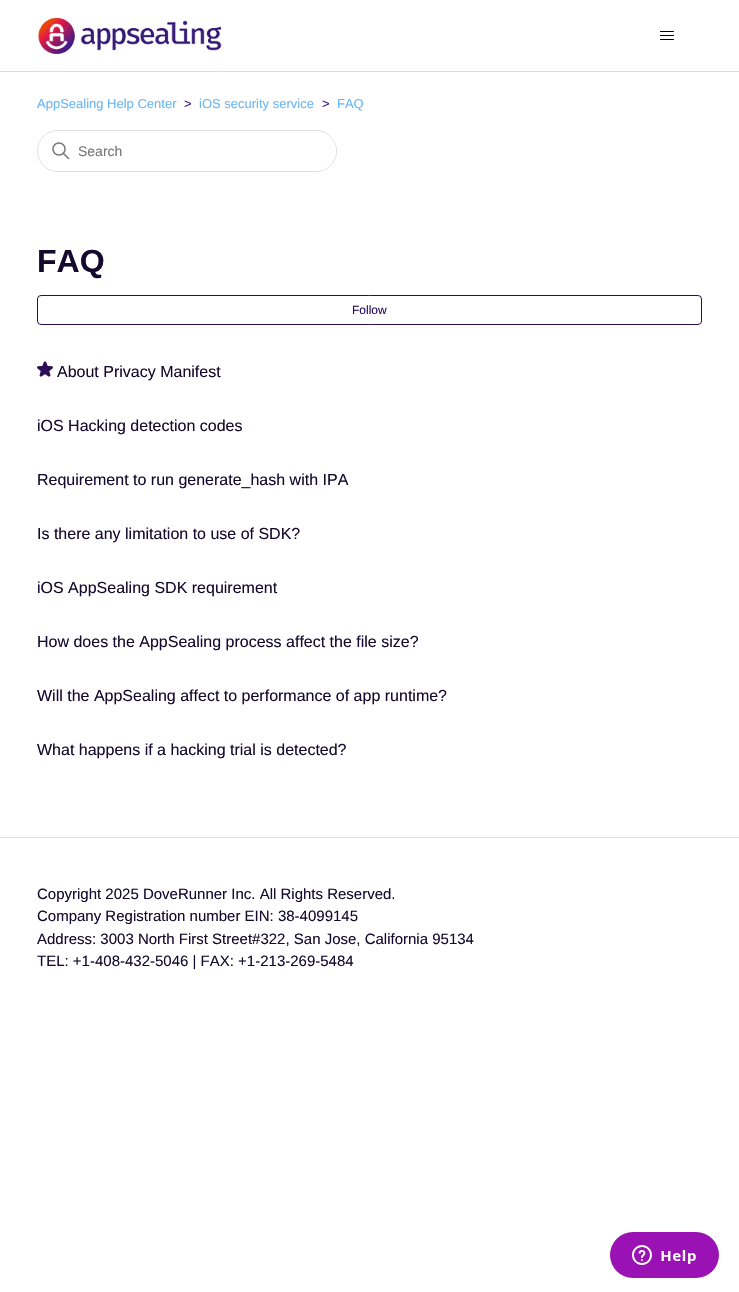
void draw(SkCanvas* canvas) {
	SkPaint paint;
	paint.setAntiAlias(true);
	auto svgPath = [&](const char* data, bool evenOdd = false) {
		SkPath result = *SkParsePath::FromSVGString(data);
		if (evenOdd) result.setFillType(SkPathFillType::kEvenOdd);
		return result;
	};
	canvas->clear(0xffffffff);
	canvas->drawImageRect(SkImages::DeferredFromEncodedData(SkData::MakeFromFileName("img1.png")), SkRect::MakeXYWH(38, 17, 184, 37), SkSamplingOptions());
	paint.setStroke(true);
	paint.setStrokeWidth(1);
	paint.setStrokeCap(SkPaint::kRound_Cap);
	paint.setColor(0xff000000);
	canvas->drawPath(svgPath("M660.5 31.5H673.5M660.5 35.5H673.5M660.5 39.5H673.5"), paint);
	paint.setStroke(false);
	paint.setColor(0xffdddddd);
	canvas->drawRect(SkRect::MakeXYWH(0, 71, 739, 1), paint);
	SkFont f1(fontMgr->matchFamilyStyle("Liberation Sans", SkFontStyle::Normal()), 13);
	f1.setSubpixel(true);
	paint.setColor(0xff68b7f9);
	canvas->drawString("AppSealing Help Center", 37, 108, f1, paint);
	paint.setColor(0xff391d80);
	canvas->drawString(">", 184, 108, f1, paint);
	paint.setColor(0xff68b7f9);
	canvas->drawString("iOS security service", 199, 108, f1, paint);
	paint.setColor(0xff391d80);
	canvas->drawString(">", 322, 108, f1, paint);
	paint.setColor(0xff68b7f9);
	canvas->drawString("FAQ", 337, 108, f1, paint);
	paint.setStroke(true);
	paint.setStrokeCap(SkPaint::kButt_Cap);
	paint.setColor(0xffdddddd);
	canvas->drawRoundRect(SkRect::MakeXYWH(37.5, 130.5, 299, 41), 20.5, 20.5, paint);
	paint.setStroke(false);
	paint.setColor(0xffffffff);
	canvas->drawRoundRect(SkRect::MakeXYWH(38, 131, 298, 40), 20, 20, paint);
	canvas->drawImageRect(SkImages::DeferredFromEncodedData(SkData::MakeFromFileName("img2.png")), SkRect::MakeXYWH(52, 142, 18, 18), SkSamplingOptions());
	SkFont f2(fontMgr->matchFamilyStyle("Liberation Sans", SkFontStyle::Normal()), 14);
	f2.setSubpixel(true);
	paint.setColor(0xff757575);
	canvas->drawString("Search", 78, 156, f2, paint);
	SkFont f3(fontMgr->matchFamilyStyle("Liberation Sans", SkFontStyle::Bold()), 32);
	f3.setSubpixel(true);
	paint.setColor(0xff140a2d);
	canvas->drawString("FAQ", 37, 272, f3, paint);
	paint.setStroke(true);
	paint.setColor(0xff2b0e56);
	canvas->drawRoundRect(SkRect::MakeXYWH(37.5, 295.5, 664, 29), 3.5, 3.5, paint);
	SkFont f4(fontMgr->matchFamilyStyle("Liberation Sans", SkFontStyle::Normal()), 12);
	f4.setSubpixel(true);
	paint.setStroke(false);
	canvas->drawString("Follow", 352, 314, f4, paint);
	canvas->drawImageRect(SkImages::DeferredFromEncodedData(SkData::MakeFromFileName("img3.png")), SkRect::MakeXYWH(37, 361, 16, 16), SkSamplingOptions());
	SkFont f5(fontMgr->matchFamilyStyle("Liberation Sans", SkFontStyle::Normal()), 16);
	f5.setSubpixel(true);
	paint.setColor(0xff140a2d);
	canvas->drawString("About Privacy Manifest", 57, 377, f5, paint);
	canvas->drawString("iOS Hacking detection codes", 37, 431, f5, paint);
	canvas->drawString("Requirement to run generate_hash with IPA", 37, 485, f5, paint);
	canvas->drawString("Is there any limitation to use of SDK?", 37, 539, f5, paint);
	canvas->drawString("iOS AppSealing SDK requirement", 37, 593, f5, paint);
	canvas->drawString("How does the AppSealing process affect the file size?", 37, 647, f5, paint);
	canvas->drawString("Will the AppSealing affect to performance of app runtime?", 37, 701, f5, paint);
	canvas->drawString("What happens if a hacking trial is detected?", 37, 755, f5, paint);
	paint.setColor(0xffdddddd);
	canvas->drawRect(SkRect::MakeXYWH(0, 837, 739, 1), paint);
	SkFont f6(fontMgr->matchFamilyStyle("Liberation Sans", SkFontStyle::Normal()), 15);
	f6.setSubpixel(true);
	paint.setColor(0xff140a2d);
	canvas->drawString("Copyright 2025 DoveRunner Inc. All Rights Reserved.", 37, 899, f6, paint);
	canvas->drawString("Company Registration number EIN: 38-4099145", 37, 921, f6, paint);
	canvas->drawString("Address: 3003 North First Street#322, San Jose, California 95134", 37, 944, f6, paint);
	canvas->drawString("TEL: +1-408-432-5046 | FAX: +1-213-269-5484", 37, 966, f6, paint);
	canvas->drawImageRect(SkImages::DeferredFromEncodedData(SkData::MakeFromFileName("img4.png")), SkRect::MakeXYWH(610, 1232, 109, 46), SkSamplingOptions());
}
